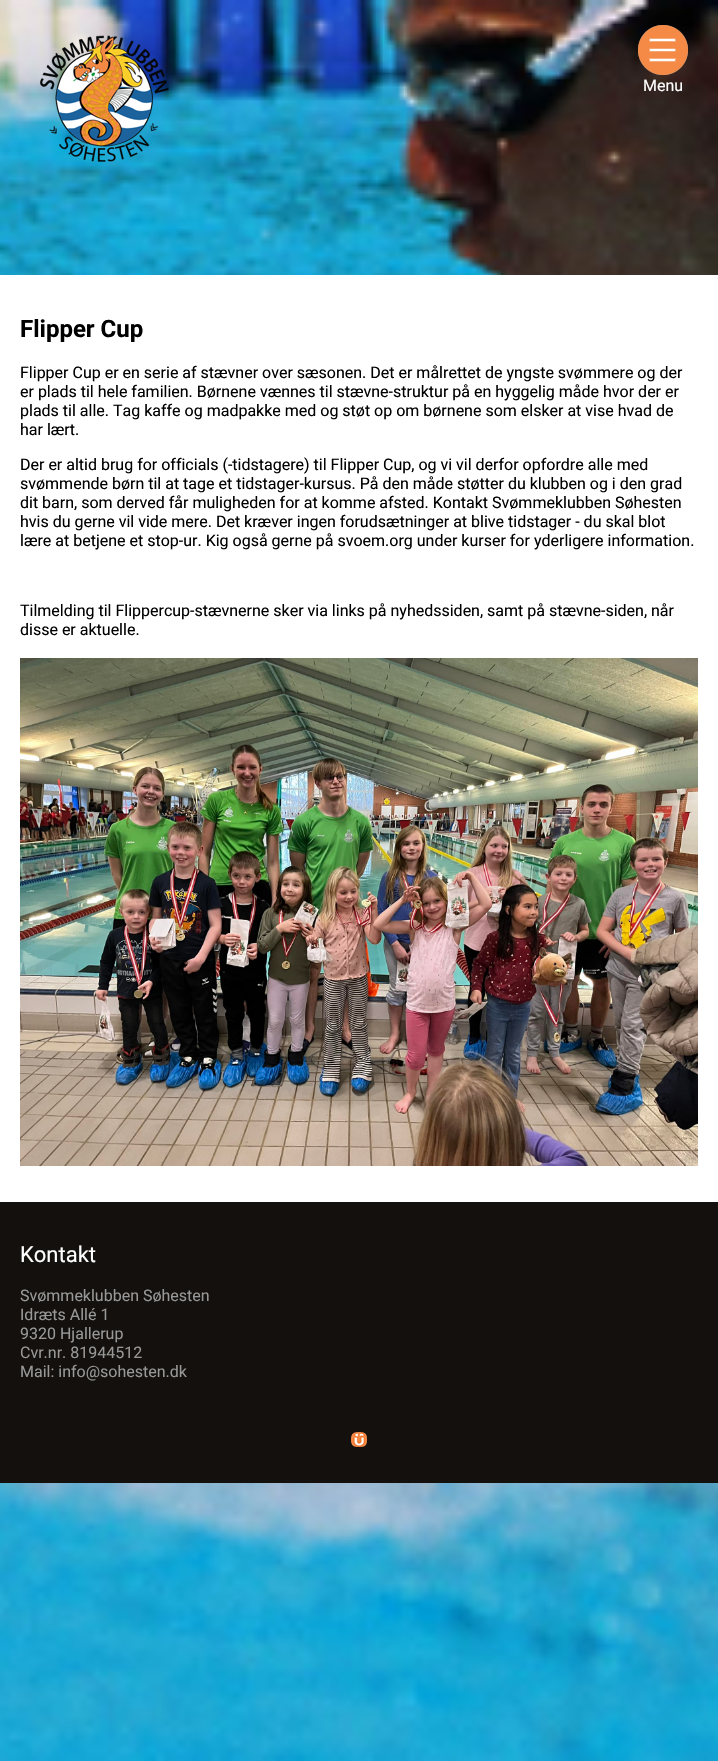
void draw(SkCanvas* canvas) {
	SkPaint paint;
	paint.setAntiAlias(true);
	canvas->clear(0xffffffff);
	canvas->drawImageRect(SkImages::DeferredFromEncodedData(SkData::MakeFromFileName("img1.png")), SkRect::MakeXYWH(0, 0, 718, 1761), SkSamplingOptions());
	canvas->drawImageRect(SkImages::DeferredFromEncodedData(SkData::MakeFromFileName("img2.png")), SkRect::MakeXYWH(40, 35, 129, 127), SkSamplingOptions());
	canvas->drawImageRect(SkImages::DeferredFromEncodedData(SkData::MakeFromFileName("img3.png")), SkRect::MakeXYWH(638, 25, 50, 50), SkSamplingOptions());
	SkFont f1(fontMgr->matchFamilyStyle("Roboto", SkFontStyle::Normal()), 16);
	f1.setSubpixel(true);
	paint.setColor(0xffffffff);
	canvas->drawString("Menu", 643, 91, f1, paint);
	canvas->drawRect(SkRect::MakeXYWH(0, 275, 718, 927), paint);
	SkFont f2(fontMgr->matchFamilyStyle("Roboto", SkFontStyle::Bold()), 24);
	f2.setSubpixel(true);
	paint.setColor(0xff000000);
	canvas->drawString("Flipper Cup", 20, 337, f2, paint);
	canvas->drawString("Flipper Cup er en serie af stævner over sæsonen. Det er målrettet de yngste svømmere og der", 20, 378, f1, paint);
	canvas->drawString("er plads til hele familien. Børnene vænnes til stævne-struktur på en hyggelig måde hvor der er", 20, 397, f1, paint);
	canvas->drawString("plads til alle. Tag kaffe og madpakke med og støt op om børnene som elsker at vise hvad de", 20, 416, f1, paint);
	canvas->drawString("har lært.", 20, 435, f1, paint);
	canvas->drawString("Der er altid brug for officials (-tidstagere) til Flipper Cup, og vi vil derfor opfordre alle med", 20, 470, f1, paint);
	canvas->drawString("svømmende børn til at tage et tidstager-kursus. På den måde støtter du klubben og i den grad", 20, 489, f1, paint);
	canvas->drawString("dit barn, som derved får muligheden for at komme afsted. Kontakt Svømmeklubben Søhesten", 20, 508, f1, paint);
	canvas->drawString("hvis du gerne vil vide mere. Det kræver ingen forudsætninger at blive tidstager - du skal blot", 20, 527, f1, paint);
	canvas->drawString("lære at betjene et stop-ur. Kig også gerne på svoem.org under kurser for yderligere information.", 20, 546, f1, paint);
	canvas->drawString("Tilmelding til Flippercup-stævnerne sker via links på nyhedssiden, samt på stævne-siden, når", 20, 616, f1, paint);
	canvas->drawString("disse er aktuelle.", 20, 635, f1, paint);
	canvas->drawImageRect(SkImages::DeferredFromEncodedData(SkData::MakeFromFileName("img4.png")), SkRect::MakeXYWH(20, 658, 678, 508), SkSamplingOptions());
	paint.setColor(0xff13100d);
	canvas->drawRect(SkRect::MakeXYWH(0, 1202, 718, 281), paint);
	SkFont f3(fontMgr->matchFamilyStyle("Roboto", SkFontStyle::Normal()), 22);
	f3.setSubpixel(true);
	paint.setColor(0xffffffff);
	canvas->drawString("Kontakt", 20, 1262, f3, paint);
	paint.setColor(0xff989898);
	canvas->drawString("Svømmeklubben Søhesten", 20, 1301, f1, paint);
	canvas->drawString("Idræts Allé 1", 20, 1320, f1, paint);
	canvas->drawString("9320 Hjallerup", 20, 1339, f1, paint);
	canvas->drawString("Cvr.nr. 81944512", 20, 1358, f1, paint);
	canvas->drawString("Mail: info@sohesten.dk", 20, 1377, f1, paint);
	canvas->drawImageRect(SkImages::DeferredFromEncodedData(SkData::MakeFromFileName("img5.png")), SkRect::MakeXYWH(351, 1432, 16, 15), SkSamplingOptions());
}
